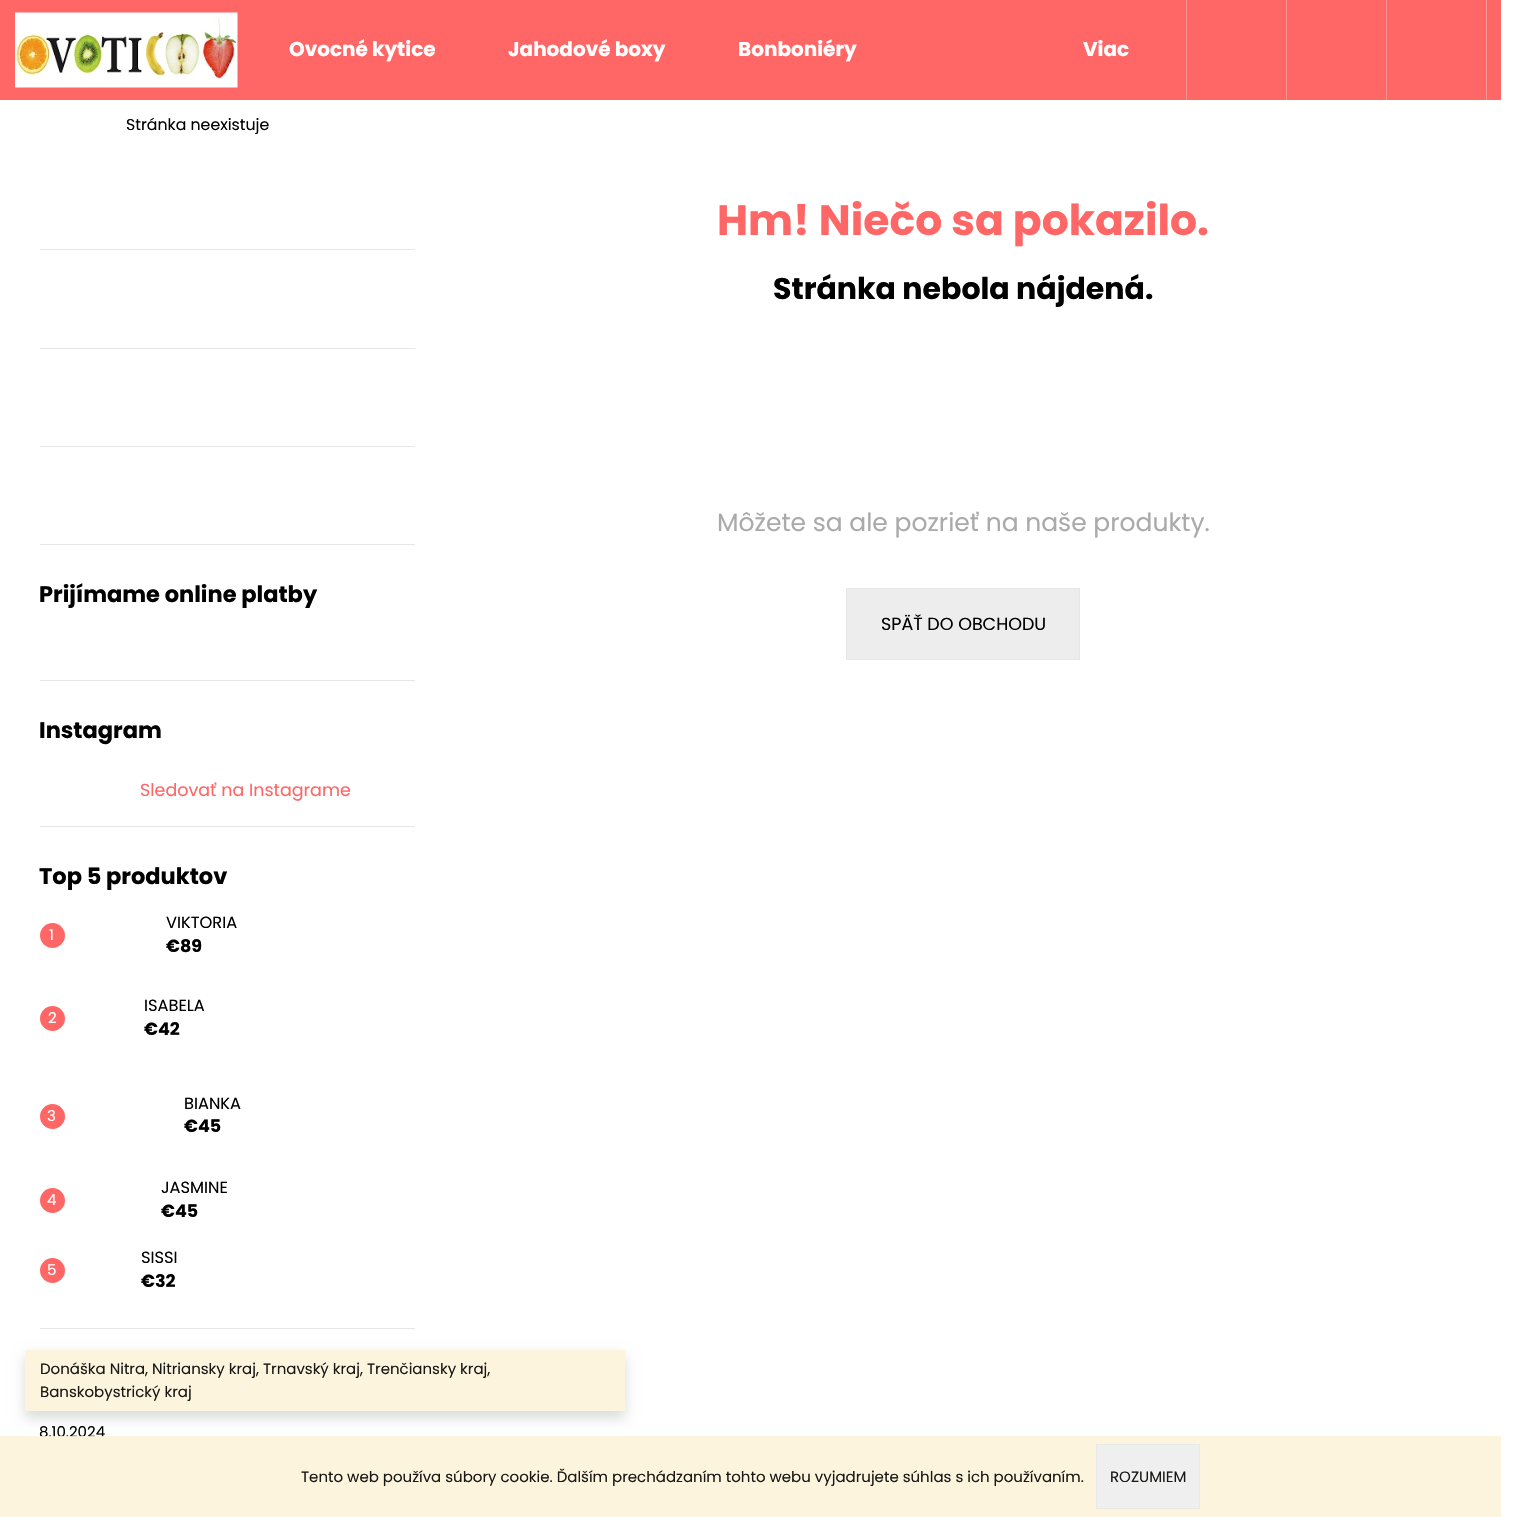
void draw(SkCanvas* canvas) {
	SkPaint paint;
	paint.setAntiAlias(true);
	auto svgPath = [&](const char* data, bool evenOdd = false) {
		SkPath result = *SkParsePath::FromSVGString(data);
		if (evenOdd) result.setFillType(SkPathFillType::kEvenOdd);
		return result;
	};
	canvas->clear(0xffffffff);
	paint.setColor(0xffff6666);
	canvas->drawRect(SkRect::MakeXYWH(0, 0, 1501, 100), paint);
	canvas->drawImageRect(SkImages::DeferredFromEncodedData(SkData::MakeFromFileName("img1.png")), SkRect::MakeXYWH(15, 12, 223, 76), SkSamplingOptions());
	SkFont f1(fontMgr->matchFamilyStyle("Poppins", SkFontStyle::Bold()), 20);
	f1.setSubpixel(true);
	paint.setColor(0xffffffff);
	canvas->drawString("Ovocné kytice", 289, 56, f1, paint);
	canvas->drawString("Jahodové boxy", 508, 56, f1, paint);
	canvas->drawString("Bonboniéry", 738, 56, f1, paint);
	canvas->drawString("Viac", 1083, 56, f1, paint);
	paint.setColor(0xffff9494);
	canvas->drawRect(SkRect::MakeXYWH(1486, 0, 1, 100), paint);
	canvas->drawRect(SkRect::MakeXYWH(1186, 0, 1, 100), paint);
	canvas->drawRect(SkRect::MakeXYWH(1286, 0, 1, 100), paint);
	canvas->drawRect(SkRect::MakeXYWH(1386, 0, 1, 100), paint);
	SkFont f2(fontMgr->matchFamilyStyle("Poppins", SkFontStyle::Normal()), 15.75);
	f2.setSubpixel(true);
	paint.setColor(0xff000000);
	canvas->drawString("Stránka neexistuje", 126, 130, f2, paint);
	SkFont f3(fontMgr->matchFamilyStyle("Poppins", SkFontStyle::Bold()), 42.5);
	f3.setSubpixel(true);
	paint.setColor(0xffff6666);
	canvas->drawString("Hm! Niečo sa pokazilo.", 717, 235, f3, paint);
	SkFont f4(fontMgr->matchFamilyStyle("Poppins", SkFontStyle::Bold()), 30);
	f4.setSubpixel(true);
	paint.setColor(0xff000000);
	canvas->drawString("Stránka nebola nájdená.", 773, 299, f4, paint);
	SkFont f5(fontMgr->matchFamilyStyle("Poppins", SkFontStyle::Normal()), 25);
	f5.setSubpixel(true);
	paint.setColor(0xffaaaaaa);
	canvas->drawString("Môžete sa ale pozrieť na naše produkty.", 717, 531, f5, paint);
	paint.setColor(0xffededed);
	canvas->drawRect(SkRect::MakeXYWH(846.5, 588.5, 233, 71), paint);
	paint.setStroke(true);
	paint.setStrokeWidth(1);
	paint.setColor(0xffe6e6e6);
	canvas->drawRect(SkRect::MakeXYWH(846.5, 588.5, 233, 71), paint);
	SkFont f6(fontMgr->matchFamilyStyle("Poppins", SkFontStyle::Normal()), 17.5);
	f6.setSubpixel(true);
	paint.setStroke(false);
	paint.setColor(0xff000000);
	canvas->drawString("SPÄŤ DO OBCHODU", 881, 630, f6, paint);
	paint.setColor(0xffe6e6e6);
	canvas->drawRect(SkRect::MakeXYWH(40, 249, 375, 1), paint);
	canvas->drawRect(SkRect::MakeXYWH(40, 348, 375, 1), paint);
	canvas->drawRect(SkRect::MakeXYWH(40, 446, 375, 1), paint);
	canvas->drawRect(SkRect::MakeXYWH(40, 544, 375, 1), paint);
	SkFont f7(fontMgr->matchFamilyStyle("Poppins", SkFontStyle::Bold()), 22.5);
	f7.setSubpixel(true);
	paint.setColor(0xff000000);
	canvas->drawString("Prijímame online platby", 39, 602, f7, paint);
	paint.setColor(0xffe6e6e6);
	canvas->drawRect(SkRect::MakeXYWH(40, 680, 375, 1), paint);
	paint.setColor(0xff000000);
	canvas->drawString("Instagram", 39, 738, f7, paint);
	paint.setColor(0xffff6666);
	canvas->drawString("Sledovať na Instagrame", 140, 796, f6, paint);
	paint.setColor(0xffe6e6e6);
	canvas->drawRect(SkRect::MakeXYWH(40, 826, 375, 1), paint);
	paint.setColor(0xff000000);
	canvas->drawString("Top 5 produktov", 39, 884, f7, paint);
	paint.setColor(0xffff6666);
	canvas->drawCircle(52.5, 935.5, 12.5, paint);
	SkFont f8(fontMgr->matchFamilyStyle("Poppins", SkFontStyle::Normal()), 15);
	f8.setSubpixel(true);
	paint.setColor(0xffffffff);
	canvas->drawString("1", 49, 940, f8, paint);
	SkFont f9(fontMgr->matchFamilyStyle("Poppins", SkFontStyle::Normal()), 16.25);
	f9.setSubpixel(true);
	paint.setColor(0xff000000);
	canvas->drawString("VIKTORIA", 166, 928, f9, paint);
	SkFont f10(fontMgr->matchFamilyStyle("Poppins", SkFontStyle::Bold()), 17.5);
	f10.setSubpixel(true);
	canvas->drawString("€89", 166, 952, f10, paint);
	paint.setColor(0xffff6666);
	canvas->drawCircle(52.5, 1018.5, 12.5, paint);
	paint.setColor(0xffffffff);
	canvas->drawString("2", 48, 1023, f8, paint);
	paint.setColor(0xff000000);
	canvas->drawString("ISABELA", 144, 1011, f9, paint);
	canvas->drawString("€42", 144, 1035, f10, paint);
	paint.setColor(0xffff6666);
	canvas->drawCircle(52.5, 1116.5, 12.5, paint);
	paint.setColor(0xffffffff);
	canvas->drawString("3", 47, 1121, f8, paint);
	paint.setColor(0xff000000);
	canvas->drawString("BIANKA", 184, 1109, f9, paint);
	canvas->drawString("€45", 184, 1132, f10, paint);
	paint.setColor(0xffff6666);
	canvas->drawCircle(52.5, 1200.5, 12.5, paint);
	paint.setColor(0xffffffff);
	canvas->drawString("4", 47, 1205, f8, paint);
	paint.setColor(0xff000000);
	canvas->drawString("JASMINE", 161, 1193, f9, paint);
	canvas->drawString("€45", 161, 1217, f10, paint);
	paint.setColor(0xffff6666);
	canvas->drawCircle(52.5, 1270.5, 12.5, paint);
	paint.setColor(0xffffffff);
	canvas->drawString("5", 47, 1275, f8, paint);
	paint.setColor(0xff000000);
	canvas->drawString("SISSI", 141, 1263, f9, paint);
	canvas->drawString("€32", 141, 1287, f10, paint);
	paint.setColor(0xffe6e6e6);
	canvas->drawRect(SkRect::MakeXYWH(40, 1328, 375, 1), paint);
	paint.setColor(0xff000000);
	canvas->drawString("8.10.2024", 39, 1437, f8, paint);
	canvas->save();
	canvas->clipPath(svgPath("M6 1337H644V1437H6ZM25 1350H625V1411H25Z", true), true);
	paint.setColor(0x24000000);
	paint.setMaskFilter(SkMaskFilter::MakeBlur(kNormal_SkBlurStyle, 6));
	canvas->drawRect(SkRect::MakeXYWH(25, 1356, 600, 62), paint);
	paint.setMaskFilter(nullptr);
	canvas->restore();
	paint.setColor(0xe6fdf3da);
	canvas->drawRect(SkRect::MakeXYWH(25, 1350, 600, 61), paint);
	paint.setColor(0xff191816);
	canvas->drawString("Donáška Nitra, Nitriansky kraj, Trnavský kraj, Trenčiansky kraj,", 40, 1374, f8, paint);
	canvas->drawString("Banskobystrický kraj", 40, 1397, f8, paint);
	paint.setColor(0xe6fdf3da);
	canvas->drawRect(SkRect::MakeXYWH(0, 1436, 1501, 81), paint);
	paint.setColor(0xff191816);
	canvas->drawString("Tento web používa súbory cookie. Ďalším prechádzaním tohto webu vyjadrujete súhlas s ich používaním.", 301, 1482, f8, paint);
	paint.setColor(0xffefefef);
	canvas->drawRect(SkRect::MakeXYWH(1096.5, 1444.5, 103, 64), paint);
	paint.setStroke(true);
	paint.setColor(0xffe9e9e9);
	canvas->drawRect(SkRect::MakeXYWH(1096.5, 1444.5, 103, 64), paint);
	paint.setStroke(false);
	paint.setColor(0xff191816);
	canvas->drawString("ROZUMIEM", 1110, 1482, f8, paint);
}
